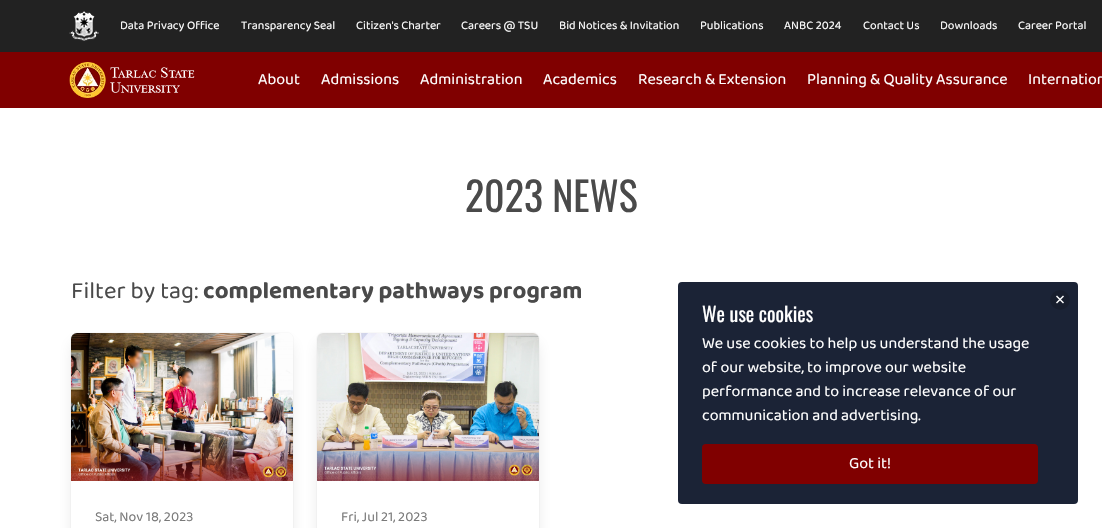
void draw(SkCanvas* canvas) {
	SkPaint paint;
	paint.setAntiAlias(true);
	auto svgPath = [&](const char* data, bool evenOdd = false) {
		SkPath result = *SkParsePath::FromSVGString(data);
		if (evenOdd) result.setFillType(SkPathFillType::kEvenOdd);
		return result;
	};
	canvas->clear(0xffffffff);
	paint.setColor(0xff222222);
	canvas->drawRect(SkRect::MakeXYWH(0, 0, 1102, 52), paint);
	canvas->drawImageRect(SkImages::DeferredFromEncodedData(SkData::MakeFromFileName("img1.png")), SkRect::MakeXYWH(69, 11, 30, 30), SkSamplingOptions());
	SkFont f1(fontMgr->matchFamilyStyle("Baloo Thambi 2", SkFontStyle::Normal()), 12);
	f1.setSubpixel(true);
	paint.setColor(0xffffffff);
	canvas->drawString("Data Privacy Office", 120, 29, f1, paint);
	canvas->drawString("Transparency Seal", 241, 29, f1, paint);
	canvas->drawString("Citizen's Charter", 356, 29, f1, paint);
	canvas->drawString("Careers @ TSU", 461, 29, f1, paint);
	canvas->drawString("Bid Notices & Invitation", 559, 29, f1, paint);
	canvas->drawString("Publications", 700, 29, f1, paint);
	canvas->drawString("ANBC 2024", 784, 29, f1, paint);
	canvas->drawString("Contact Us", 863, 29, f1, paint);
	canvas->drawString("Downloads", 940, 29, f1, paint);
	canvas->drawString("Career Portal", 1018, 29, f1, paint);
	paint.setColor(0xff800000);
	canvas->drawRect(SkRect::MakeXYWH(0, 52, 1102, 56), paint);
	canvas->drawImageRect(SkImages::DeferredFromEncodedData(SkData::MakeFromFileName("img2.png")), SkRect::MakeXYWH(69, 62, 126, 36), SkSamplingOptions());
	SkFont f2(fontMgr->matchFamilyStyle("Baloo Thambi 2", SkFontStyle::Normal()), 16);
	f2.setSubpixel(true);
	paint.setColor(0xffffffff);
	canvas->drawString("About", 258, 84, f2, paint);
	canvas->drawString("Admissions", 321, 84, f2, paint);
	canvas->drawString("Administration", 420, 84, f2, paint);
	canvas->drawString("Academics", 543, 84, f2, paint);
	canvas->drawString("Research & Extension", 638, 84, f2, paint);
	canvas->drawString("Planning & Quality Assurance", 807, 84, f2, paint);
	canvas->drawString("Internation", 1028, 84, f2, paint);
	SkFont f3(fontMgr->matchFamilyStyle("Oswald", SkFontStyle::Normal()), 40);
	f3.setSubpixel(true);
	paint.setColor(0xff4a4a4a);
	canvas->drawString("2023 NEWS", 465, 212, f3, paint);
	SkFont f4(fontMgr->matchFamilyStyle("Baloo Thambi 2", SkFontStyle::Normal()), 24);
	f4.setSubpixel(true);
	canvas->drawString("Filter by tag:", 71, 298, f4, paint);
	SkFont f5(fontMgr->matchFamilyStyle("Baloo Thambi 2", SkFontStyle::Bold()), 24);
	f5.setSubpixel(true);
	canvas->drawString("complementary pathways program", 203, 298, f5, paint);
	paint.setStroke(true);
	paint.setStrokeWidth(1);
	paint.setColor(0xfffafafa);
	canvas->drawRoundRect(SkRect::MakeXYWH(70.5, 332.5, 223, 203), 6.5, 6.5, paint);
	paint.setStroke(false);
	paint.setColor(0x1a0a0a0a);
	paint.setMaskFilter(SkMaskFilter::MakeBlur(kNormal_SkBlurStyle, 8));
	canvas->drawRoundRect(SkRect::MakeXYWH(73, 343, 218, 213), 4, 4, paint);
	paint.setMaskFilter(nullptr);
	paint.setColor(0xffffffff);
	canvas->drawRoundRect(SkRect::MakeXYWH(71, 333, 222, 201), 6, 6, paint);
	canvas->drawImageRect(SkImages::DeferredFromEncodedData(SkData::MakeFromFileName("img3.png")), SkRect::MakeXYWH(71, 333, 222, 148), SkSamplingOptions());
	SkFont f6(fontMgr->matchFamilyStyle("Baloo Thambi 2", SkFontStyle::Normal()), 14);
	f6.setSubpixel(true);
	paint.setColor(0xff7a7a7a);
	canvas->drawString("Sat, Nov 18, 2023", 95, 521, f6, paint);
	paint.setStroke(true);
	paint.setColor(0xfffafafa);
	canvas->drawRoundRect(SkRect::MakeXYWH(316.5, 332.5, 223, 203), 6.5, 6.5, paint);
	paint.setStroke(false);
	paint.setColor(0x1a0a0a0a);
	paint.setMaskFilter(SkMaskFilter::MakeBlur(kNormal_SkBlurStyle, 8));
	canvas->drawRoundRect(SkRect::MakeXYWH(319, 343, 218, 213), 4, 4, paint);
	paint.setMaskFilter(nullptr);
	paint.setColor(0xffffffff);
	canvas->drawRoundRect(SkRect::MakeXYWH(317, 333, 222, 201), 6, 6, paint);
	canvas->drawImageRect(SkImages::DeferredFromEncodedData(SkData::MakeFromFileName("img4.png")), SkRect::MakeXYWH(317, 333, 222, 148), SkSamplingOptions());
	paint.setColor(0xff7a7a7a);
	canvas->drawString("Fri, Jul 21, 2023", 341, 521, f6, paint);
	paint.setColor(0xff1b2336);
	canvas->drawRoundRect(SkRect::MakeXYWH(678, 282, 400, 222), 4, 4, paint);
	paint.setColor(0xff181e2d);
	canvas->drawCircle(1060, 300, 10, paint);
	paint.setColor(0xffffffff);
	canvas->drawPath(svgPath("M1057 295.5L1064 302.5L1063 303.5L1056 296.5Z"), paint);
	canvas->drawPath(svgPath("M1063 295.5L1064 296.5L1057 303.5L1056 302.5Z"), paint);
	SkFont f7(fontMgr->matchFamilyStyle("Oswald", SkFontStyle::Normal()), 20);
	f7.setSubpixel(true);
	canvas->drawString("We use cookies", 702, 322, f7, paint);
	canvas->drawString("We use cookies to help us understand the usage", 702, 348, f2, paint);
	canvas->drawString("of our website, to improve our website", 702, 372, f2, paint);
	canvas->drawString("performance and to increase relevance of our", 702, 396, f2, paint);
	canvas->drawString("communication and advertising.", 702, 420, f2, paint);
	paint.setColor(0xff800000);
	canvas->drawRoundRect(SkRect::MakeXYWH(702, 444, 336, 40), 4, 4, paint);
	paint.setColor(0xffffffff);
	canvas->drawString("Got it!", 849, 468, f2, paint);
}
